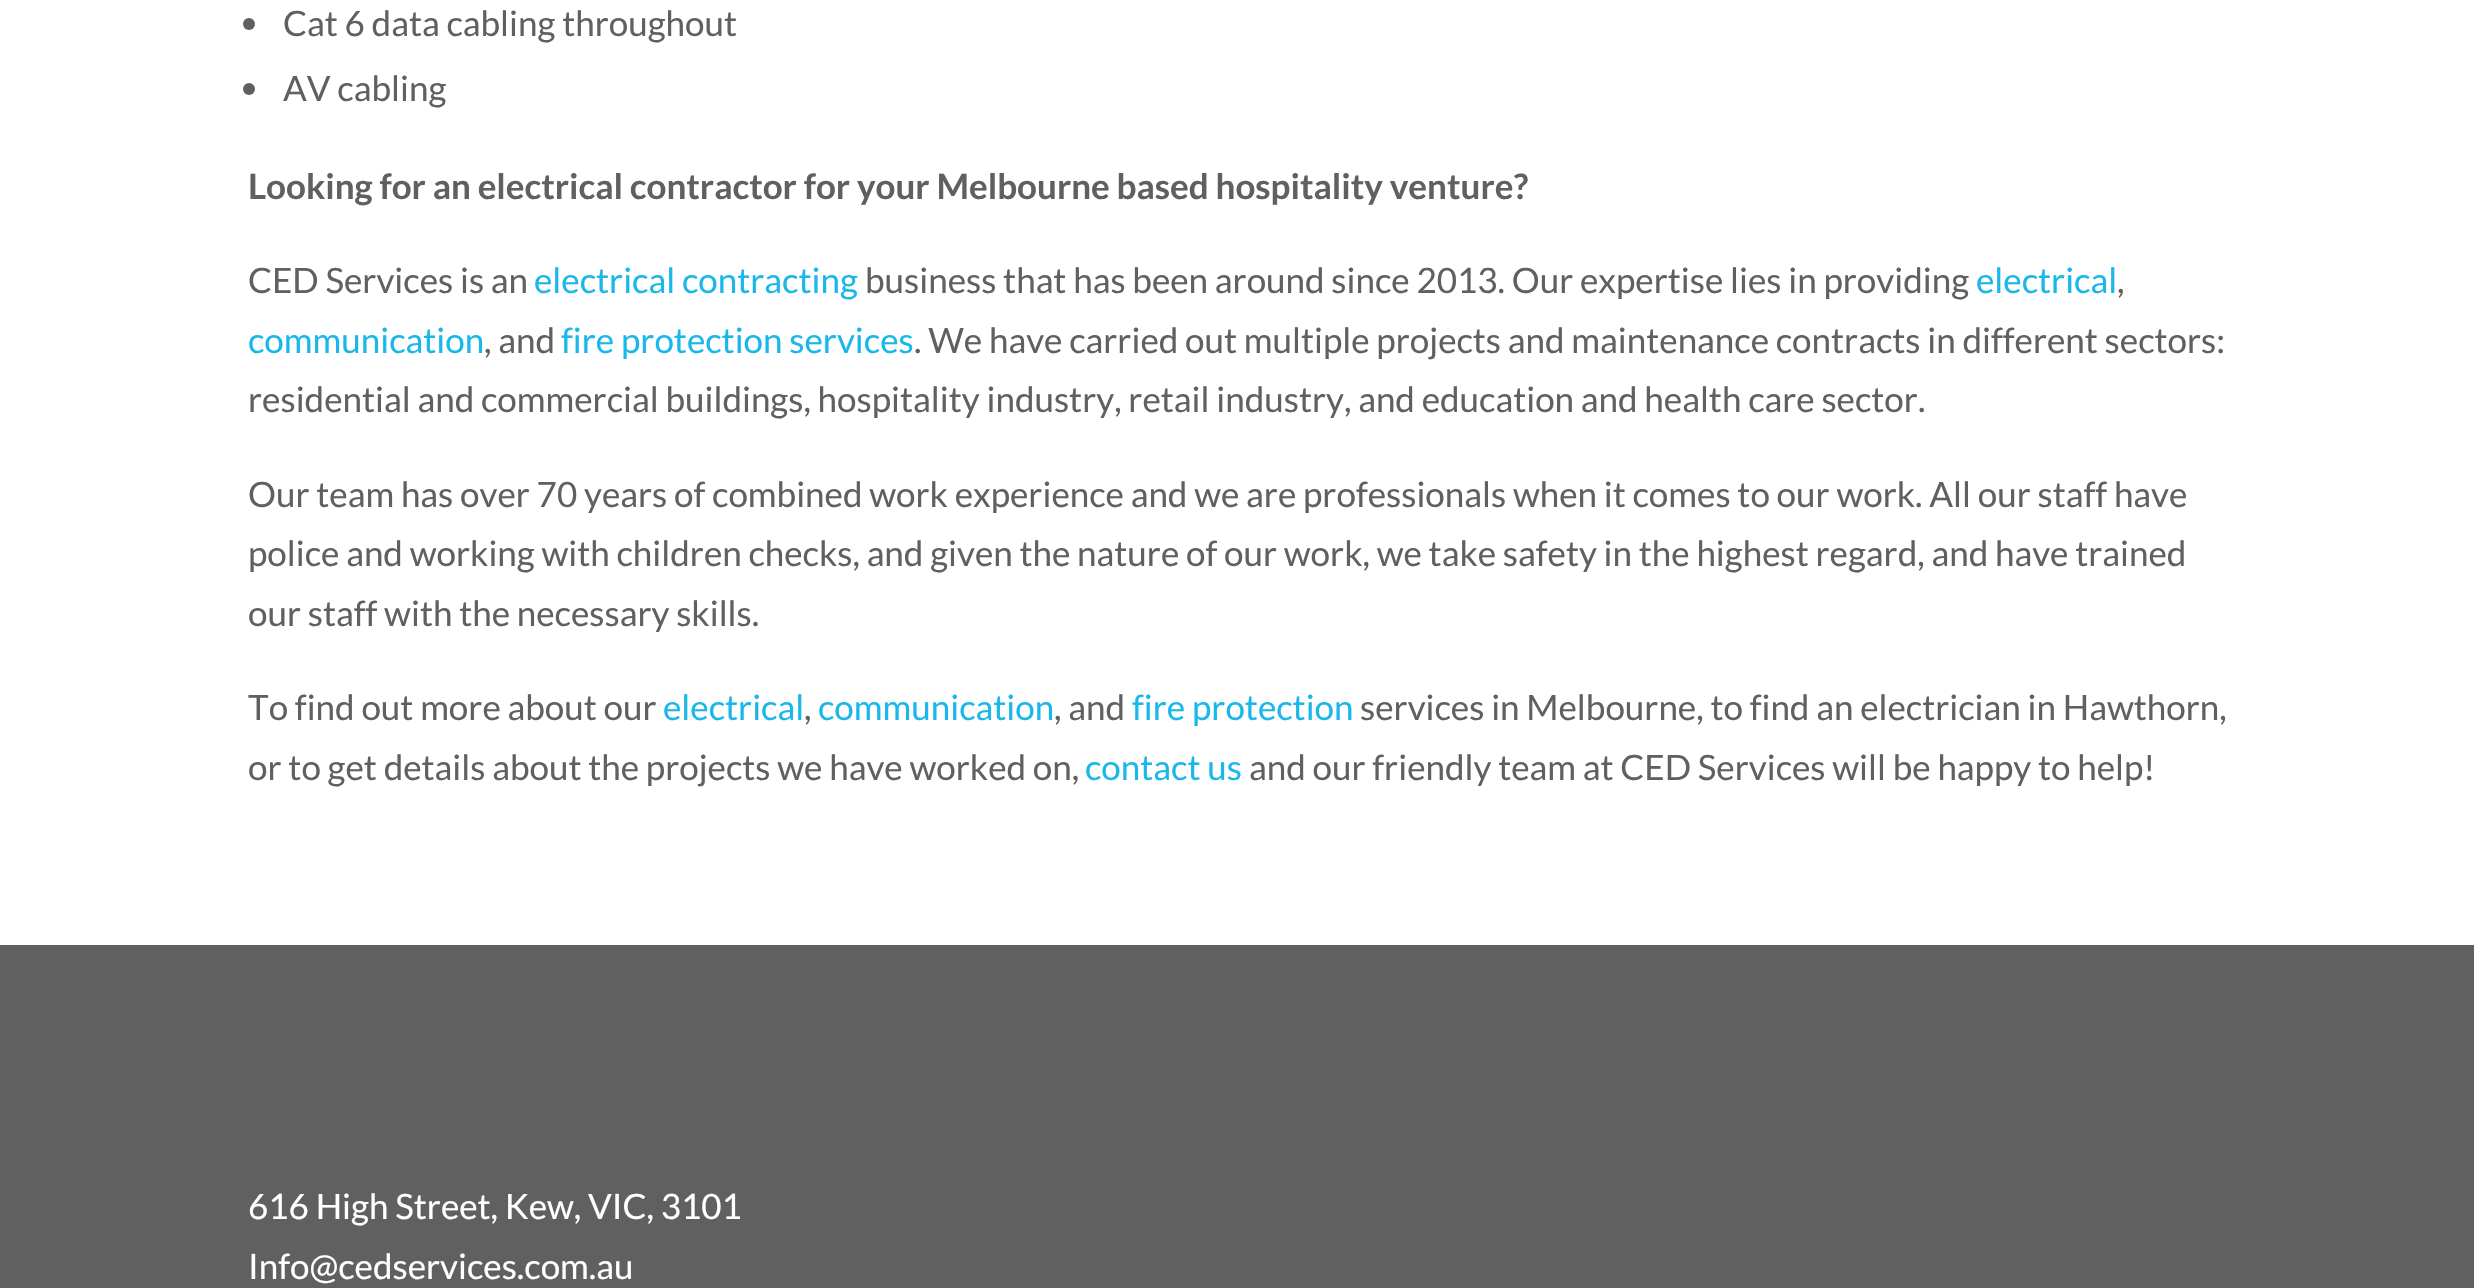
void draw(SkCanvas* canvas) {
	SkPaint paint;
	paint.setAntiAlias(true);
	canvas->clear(0xffffffff);
	paint.setColor(0xff606060);
	canvas->drawCircle(249, 24, 6, paint);
	SkFont f1(fontMgr->matchFamilyStyle("Lato", SkFontStyle::Normal()), 35);
	f1.setSubpixel(true);
	canvas->drawString("Cat 6 data cabling throughout", 283, 36, f1, paint);
	canvas->drawCircle(249, 89, 6, paint);
	canvas->drawString("AV cabling", 283, 101, f1, paint);
	SkFont f2(fontMgr->matchFamilyStyle("Lato", SkFontStyle::Bold()), 35);
	f2.setSubpixel(true);
	canvas->drawString("Looking for an electrical contractor for your Melbourne based hospitality venture?", 248, 199, f2, paint);
	canvas->drawString("CED Services is an", 248, 293, f1, paint);
	paint.setColor(0xff1ab7ea);
	canvas->drawString("electrical contracting", 534, 293, f1, paint);
	paint.setColor(0xff606060);
	canvas->drawString("business that has been around since 2013. Our expertise lies in providing", 865, 293, f1, paint);
	paint.setColor(0xff1ab7ea);
	canvas->drawString("electrical", 1976, 293, f1, paint);
	paint.setColor(0xff606060);
	canvas->drawString(",", 2117, 293, f1, paint);
	paint.setColor(0xff1ab7ea);
	canvas->drawString("communication", 248, 353, f1, paint);
	paint.setColor(0xff606060);
	canvas->drawString(", and", 484, 353, f1, paint);
	paint.setColor(0xff1ab7ea);
	canvas->drawString("fire protection services", 561, 353, f1, paint);
	paint.setColor(0xff606060);
	canvas->drawString(". We have carried out multiple projects and maintenance contracts in different sectors:", 914, 353, f1, paint);
	canvas->drawString("residential and commercial buildings, hospitality industry, retail industry, and education and health care sector.", 248, 412, f1, paint);
	canvas->drawString("Our team has over 70 years of combined work experience and we are professionals when it comes to our work. All our staff have", 248, 507, f1, paint);
	canvas->drawString("police and working with children checks, and given the nature of our work, we take safety in the highest regard, and have trained", 248, 566, f1, paint);
	canvas->drawString("our staff with the necessary skills.", 248, 626, f1, paint);
	canvas->drawString("To find out more about our", 248, 720, f1, paint);
	paint.setColor(0xff1ab7ea);
	canvas->drawString("electrical", 663, 720, f1, paint);
	paint.setColor(0xff606060);
	canvas->drawString(",", 804, 720, f1, paint);
	paint.setColor(0xff1ab7ea);
	canvas->drawString("communication", 818, 720, f1, paint);
	paint.setColor(0xff606060);
	canvas->drawString(", and", 1054, 720, f1, paint);
	paint.setColor(0xff1ab7ea);
	canvas->drawString("fire protection", 1132, 720, f1, paint);
	paint.setColor(0xff606060);
	canvas->drawString("services in Melbourne, to find an electrician in Hawthorn,", 1360, 720, f1, paint);
	canvas->drawString("or to get details about the projects we have worked on,", 248, 780, f1, paint);
	paint.setColor(0xff1ab7ea);
	canvas->drawString("contact us", 1085, 780, f1, paint);
	paint.setColor(0xff606060);
	canvas->drawString("and our friendly team at CED Services will be happy to help!", 1249, 780, f1, paint);
	canvas->drawRect(SkRect::MakeXYWH(0, 945, 2474, 343), paint);
	paint.setColor(0xffffffff);
	canvas->drawString("616 High Street, Kew, VIC, 3101", 248, 1219, f1, paint);
	canvas->drawString("Info@cedservices.com.au", 248, 1279, f1, paint);
}
